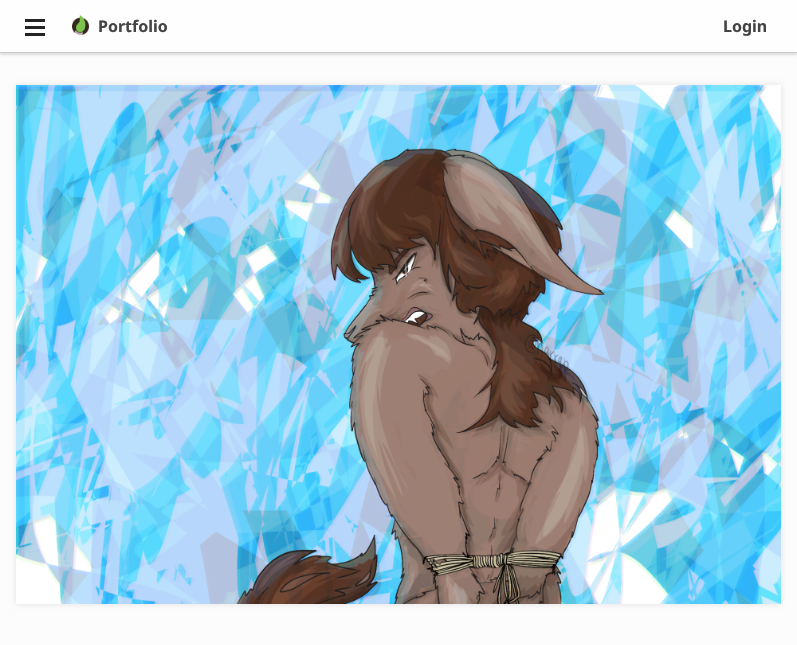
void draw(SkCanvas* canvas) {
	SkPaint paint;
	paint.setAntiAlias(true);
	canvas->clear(0xfffcfcfc);
	paint.setColor(0xffdddddd);
	paint.setMaskFilter(SkMaskFilter::MakeBlur(kNormal_SkBlurStyle, 1));
	canvas->drawRect(SkRect::MakeXYWH(0, 2, 797, 53), paint);
	paint.setMaskFilter(nullptr);
	paint.setColor(0xfffefefe);
	canvas->drawRect(SkRect::MakeXYWH(0, 0, 797, 52), paint);
	paint.setColor(0xffcccccc);
	canvas->drawRect(SkRect::MakeXYWH(0, 52, 797, 1), paint);
	paint.setColor(0xff242424);
	canvas->drawRect(SkRect::MakeXYWH(25, 19, 20, 3), paint);
	canvas->drawRect(SkRect::MakeXYWH(25, 26, 20, 3), paint);
	canvas->drawRect(SkRect::MakeXYWH(25, 33, 20, 3), paint);
	canvas->drawImageRect(SkImages::DeferredFromEncodedData(SkData::MakeFromFileName("img1.png")), SkRect::MakeXYWH(72, 15, 17, 20), SkSamplingOptions());
	SkFont f1(fontMgr->matchFamilyStyle("Noto Sans", SkFontStyle::Bold()), 16);
	f1.setSubpixel(true);
	paint.setColor(0xff444444);
	canvas->drawString("Portfolio", 98, 32, f1, paint);
	canvas->drawString("Login", 723, 32, f1, paint);
	paint.setColor(0x1a000000);
	paint.setMaskFilter(SkMaskFilter::MakeBlur(kNormal_SkBlurStyle, 3));
	canvas->drawRect(SkRect::MakeXYWH(16, 85, 765, 519), paint);
	paint.setMaskFilter(nullptr);
	canvas->drawImageRect(SkImages::DeferredFromEncodedData(SkData::MakeFromFileName("img2.png")), SkRect::MakeXYWH(16, 85, 765, 519), SkSamplingOptions());
}
